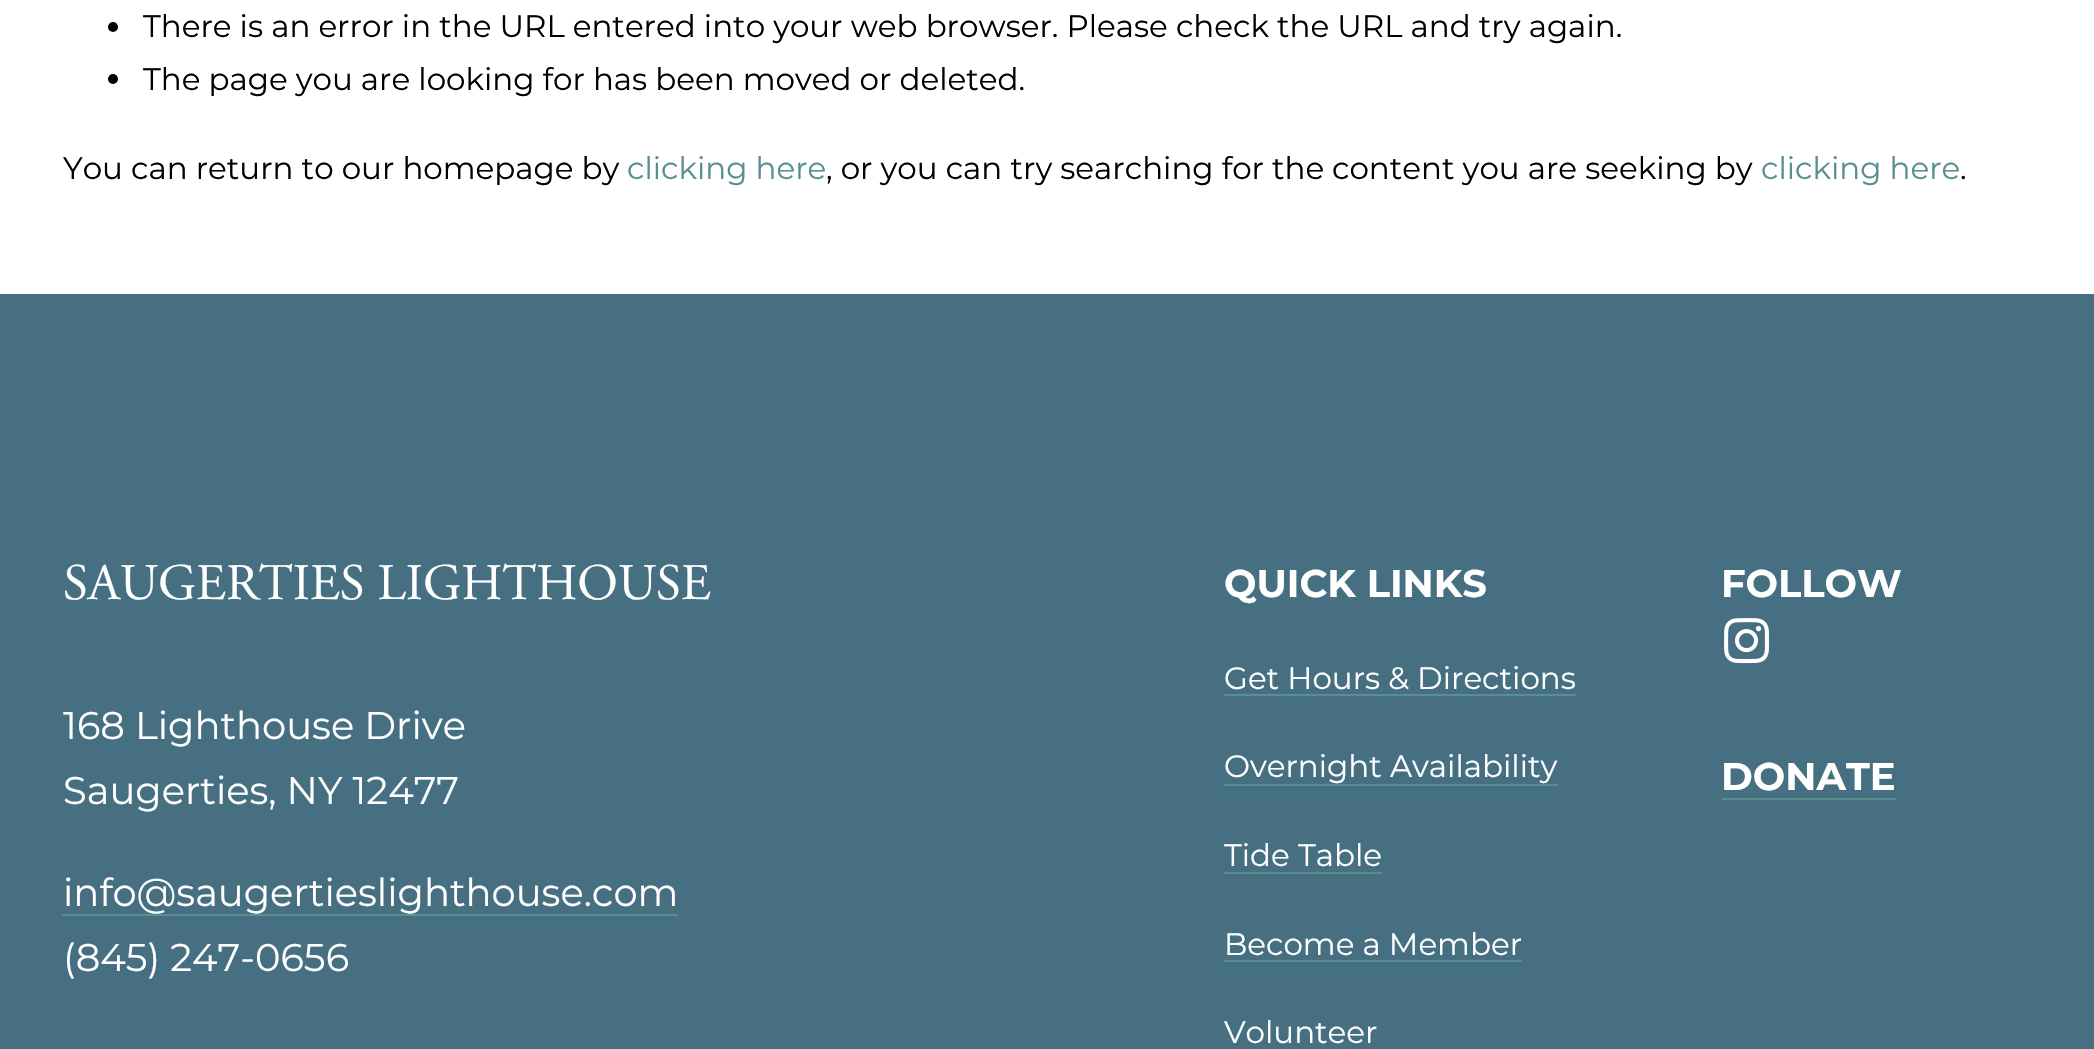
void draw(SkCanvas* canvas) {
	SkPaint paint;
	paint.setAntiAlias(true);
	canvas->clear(0xffffffff);
	paint.setColor(0xff000000);
	canvas->drawCircle(113, 27, 5, paint);
	SkFont f1(fontMgr->matchFamilyStyle("Montserrat", SkFontStyle::Normal()), 30.95);
	f1.setSubpixel(true);
	canvas->drawString("There is an error in the URL entered into your web browser. Please check the URL and try again.", 143, 37, f1, paint);
	canvas->drawCircle(113, 79, 5, paint);
	canvas->drawString("The page you are looking for has been moved or deleted.", 143, 90, f1, paint);
	canvas->drawString("You can return to our homepage by", 63, 179, f1, paint);
	paint.setColor(0xff5a8f92);
	canvas->drawString("clicking here", 627, 179, f1, paint);
	paint.setColor(0xff000000);
	canvas->drawString(", or you can try searching for the", 826, 179, f1, paint);
	canvas->drawString("content you are seeking by", 1332, 179, f1, paint);
	paint.setColor(0xff5a8f92);
	canvas->drawString("clicking here", 1761, 179, f1, paint);
	paint.setColor(0xff000000);
	canvas->drawString(".", 1960, 179, f1, paint);
	paint.setColor(0xff467082);
	canvas->drawRect(SkRect::MakeXYWH(0, 294, 2094, 755), paint);
	SkFont f2(fontMgr->matchFamilyStyle("Adobe Garamond", SkFontStyle::Normal()), 51.1);
	f2.setSubpixel(true);
	paint.setColor(0xffffffff);
	canvas->drawString("SAUGERTIES LIGHTHOUSE", 63, 599, f2, paint);
	SkFont f3(fontMgr->matchFamilyStyle("Montserrat", SkFontStyle::Normal()), 38.5);
	f3.setSubpixel(true);
	canvas->drawString("168 Lighthouse Drive", 63, 739, f3, paint);
	canvas->drawString("Saugerties, NY 12477", 63, 804, f3, paint);
	canvas->drawString("info@saugertieslighthouse.com", 63, 906, f3, paint);
	paint.setColor(0xff5a8f92);
	canvas->drawRect(SkRect::MakeXYWH(62, 914, 616, 2), paint);
	paint.setColor(0xffffffff);
	canvas->drawString("(845) 247-0656", 63, 971, f3, paint);
	SkFont f4(fontMgr->matchFamilyStyle("Montserrat", SkFontStyle::Bold()), 38.5);
	f4.setSubpixel(true);
	canvas->drawString("QUICK LINKS", 1224, 597, f4, paint);
	canvas->drawString("Get Hours & Directions", 1224, 689, f1, paint);
	paint.setColor(0xff5a8f92);
	canvas->drawRect(SkRect::MakeXYWH(1224, 694, 352, 2), paint);
	paint.setColor(0xffffffff);
	canvas->drawString("Overnight Availability", 1224, 777, f1, paint);
	paint.setColor(0xff5a8f92);
	canvas->drawRect(SkRect::MakeXYWH(1224, 784, 334, 2), paint);
	paint.setColor(0xffffffff);
	canvas->drawString("Tide Table", 1224, 866, f1, paint);
	paint.setColor(0xff5a8f92);
	canvas->drawRect(SkRect::MakeXYWH(1224, 872, 158, 2), paint);
	paint.setColor(0xffffffff);
	canvas->drawString("Become a Member", 1224, 955, f1, paint);
	paint.setColor(0xff5a8f92);
	canvas->drawRect(SkRect::MakeXYWH(1224, 960, 298, 2), paint);
	paint.setColor(0xffffffff);
	canvas->drawString("Volunteer", 1224, 1043, f1, paint);
	canvas->drawString("FOLLOW", 1721, 597, f4, paint);
	canvas->drawImageRect(SkImages::DeferredFromEncodedData(SkData::MakeFromFileName("img1.png")), SkRect::MakeXYWH(1724, 618, 46, 46), SkSamplingOptions());
	canvas->drawString("DONATE", 1721, 790, f4, paint);
	paint.setColor(0xff5a8f92);
	canvas->drawRect(SkRect::MakeXYWH(1722, 798, 174, 2), paint);
}
